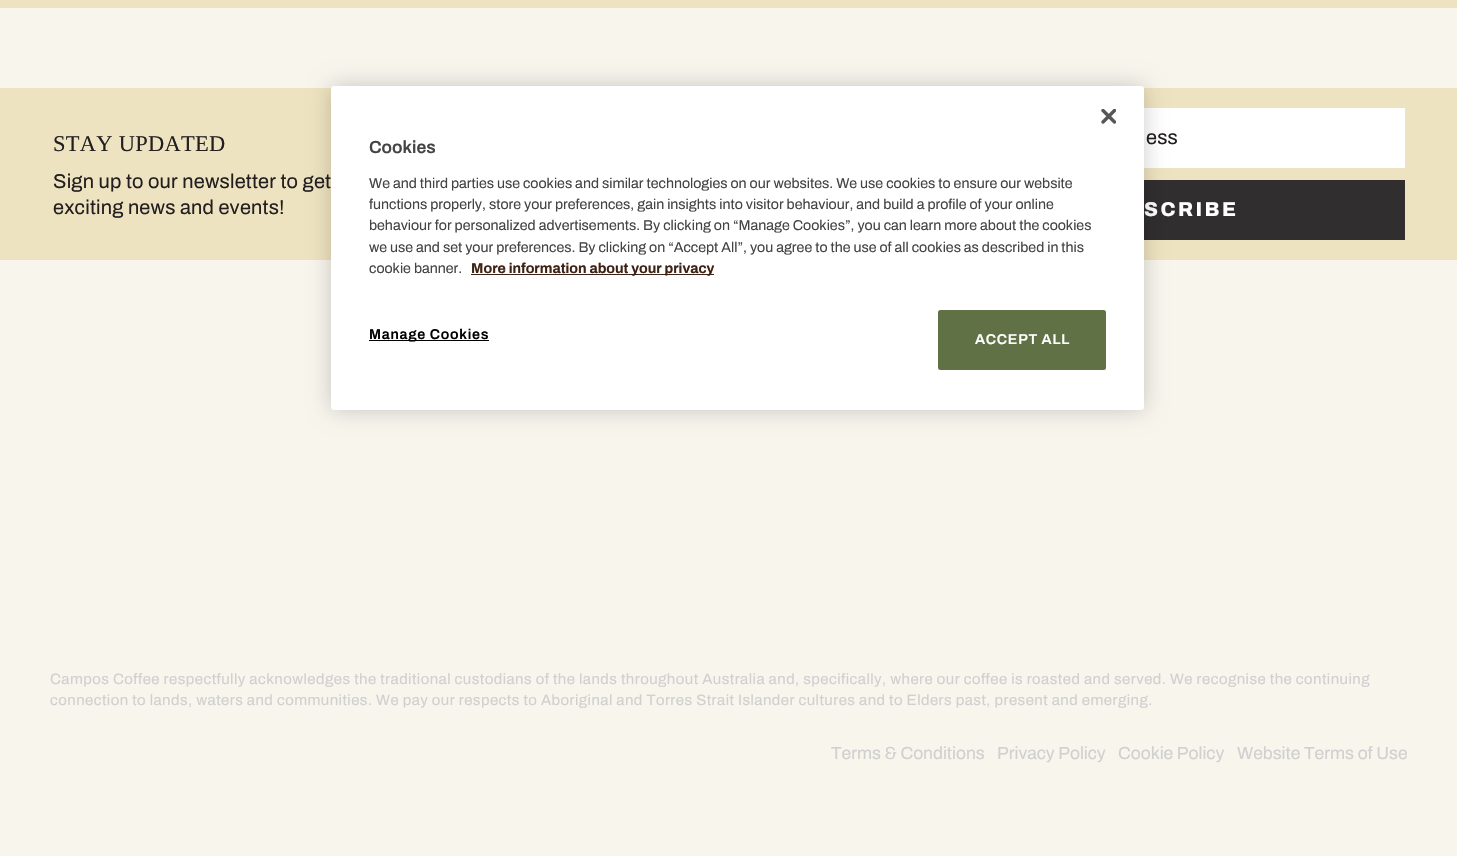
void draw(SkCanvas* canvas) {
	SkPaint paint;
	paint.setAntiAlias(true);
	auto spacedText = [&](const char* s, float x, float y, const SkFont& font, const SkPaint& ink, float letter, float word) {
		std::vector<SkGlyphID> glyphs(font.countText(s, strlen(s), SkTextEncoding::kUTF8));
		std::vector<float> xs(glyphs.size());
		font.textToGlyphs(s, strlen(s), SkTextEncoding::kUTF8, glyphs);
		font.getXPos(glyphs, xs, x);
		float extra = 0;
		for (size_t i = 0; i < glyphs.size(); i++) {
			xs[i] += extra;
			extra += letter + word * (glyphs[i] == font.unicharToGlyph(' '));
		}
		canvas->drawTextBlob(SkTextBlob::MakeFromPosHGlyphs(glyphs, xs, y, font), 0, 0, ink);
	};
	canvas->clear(0xfff8f5ed);
	paint.setColor(0xffeee3c0);
	canvas->drawRect(SkRect::MakeXYWH(0, 0, 1457, 8), paint);
	canvas->drawRect(SkRect::MakeXYWH(0, 88, 1457, 172), paint);
	SkFont f1(fontMgr->matchFamilyStyle("Liberation Serif", SkFontStyle::Normal()), 22.5);
	f1.setSubpixel(true);
	paint.setColor(0xff231f20);
	spacedText("STAY UPDATED", 53, 151, f1, paint, 0.25, 0);
	SkFont f2(fontMgr->matchFamilyStyle("Archivo", SkFontStyle::Normal()), 20);
	f2.setSubpixel(true);
	spacedText("Sign up to our newsletter to get", 53, 188, f2, paint, 0.2, 0);
	spacedText("exciting news and events!", 53, 214, f2, paint, 0.2, 0);
	paint.setColor(0xffffffff);
	canvas->drawRect(SkRect::MakeXYWH(1144, 108, 261, 60), paint);
	paint.setColor(0xff231f20);
	spacedText("ess", 1146, 144, f2, paint, 0.2, 0);
	paint.setColor(0xff302e2e);
	canvas->drawRect(SkRect::MakeXYWH(1144, 180, 261, 60), paint);
	SkFont f3(fontMgr->matchFamilyStyle("Archivo", SkFontStyle(800, SkFontStyle::kNormal_Width, SkFontStyle::kUpright_Slant)), 20);
	f3.setSubpixel(true);
	paint.setColor(0xffffffff);
	spacedText("SCRIBE", 1144, 216, f3, paint, 2.5, 0);
	SkFont f4(fontMgr->matchFamilyStyle("Archivo", SkFontStyle::Normal()), 15);
	f4.setSubpixel(true);
	paint.setColor(0xffd0d0d0);
	spacedText("Campos Coffee respectfully acknowledges the traditional custodians of the lands throughout Australia and, specifically, where our coffee is roasted and served. We recognise the continuing", 50, 684, f4, paint, 0.45, 0);
	spacedText("connection to lands, waters and communities. We pay our respects to Aboriginal and Torres Strait Islander cultures and to Elders past, present and emerging.", 50, 705, f4, paint, 0.45, 0);
	SkFont f5(fontMgr->matchFamilyStyle("Archivo", SkFontStyle::Normal()), 17.5);
	f5.setSubpixel(true);
	canvas->drawString("Terms & Conditions", 831, 759, f5, paint);
	canvas->drawString("Privacy Policy", 997, 759, f5, paint);
	canvas->drawString("Cookie Policy", 1118, 759, f5, paint);
	canvas->drawString("Website Terms of Use", 1237, 759, f5, paint);
	paint.setColor(0x33000000);
	paint.setMaskFilter(SkMaskFilter::MakeBlur(kNormal_SkBlurStyle, 11));
	canvas->drawRoundRect(SkRect::MakeXYWH(331, 86, 813, 324), 3, 3, paint);
	paint.setMaskFilter(nullptr);
	paint.setColor(0xffffffff);
	canvas->drawRoundRect(SkRect::MakeXYWH(331, 86, 813, 324), 3, 3, paint);
	canvas->drawImageRect(SkImages::DeferredFromEncodedData(SkData::MakeFromFileName("img1.png")), SkRect::MakeXYWH(1101, 109, 15, 15), SkSamplingOptions());
	SkFont f6(fontMgr->matchFamilyStyle("Archivo", SkFontStyle(600, SkFontStyle::kNormal_Width, SkFontStyle::kUpright_Slant)), 17.5);
	f6.setSubpixel(true);
	paint.setColor(0xff444444);
	canvas->drawString("Cookies", 369, 153, f6, paint);
	SkFont f7(fontMgr->matchFamilyStyle("Archivo", SkFontStyle::Normal()), 14.23);
	f7.setSubpixel(true);
	canvas->drawString("We and third parties use cookies and similar technologies on our websites. We use cookies to ensure our website", 369, 188, f7, paint);
	canvas->drawString("functions properly, store your preferences, gain insights into visitor behaviour, and build a profile of your online", 369, 209, f7, paint);
	canvas->drawString("behaviour for personalized advertisements. By clicking on “Manage Cookies”, you can learn more about the cookies", 369, 230, f7, paint);
	canvas->drawString("we use and set your preferences. By clicking on “Accept All”, you agree to the use of all cookies as described in this", 369, 252, f7, paint);
	canvas->drawString("cookie banner.", 369, 273, f7, paint);
	paint.setColor(0xff3e2314);
	canvas->drawRect(SkRect::MakeXYWH(471, 274, 243, 1), paint);
	SkFont f8(fontMgr->matchFamilyStyle("Archivo", SkFontStyle::Bold()), 14.23);
	f8.setSubpixel(true);
	canvas->drawString("More information about your privacy", 471, 273, f8, paint);
	paint.setColor(0xff000000);
	canvas->drawRect(SkRect::MakeXYWH(369, 340, 120, 1), paint);
	SkFont f9(fontMgr->matchFamilyStyle("Archivo", SkFontStyle(600, SkFontStyle::kNormal_Width, SkFontStyle::kUpright_Slant)), 14.23);
	f9.setSubpixel(true);
	spacedText("Manage Cookies", 369, 339, f9, paint, 0.75, 0);
	paint.setColor(0xff607245);
	canvas->drawRoundRect(SkRect::MakeXYWH(938, 310, 168, 60), 2.5, 2.5, paint);
	paint.setColor(0xffffffff);
	spacedText("ACCEPT ALL", 975, 344, f9, paint, 0.75, 0);
}
